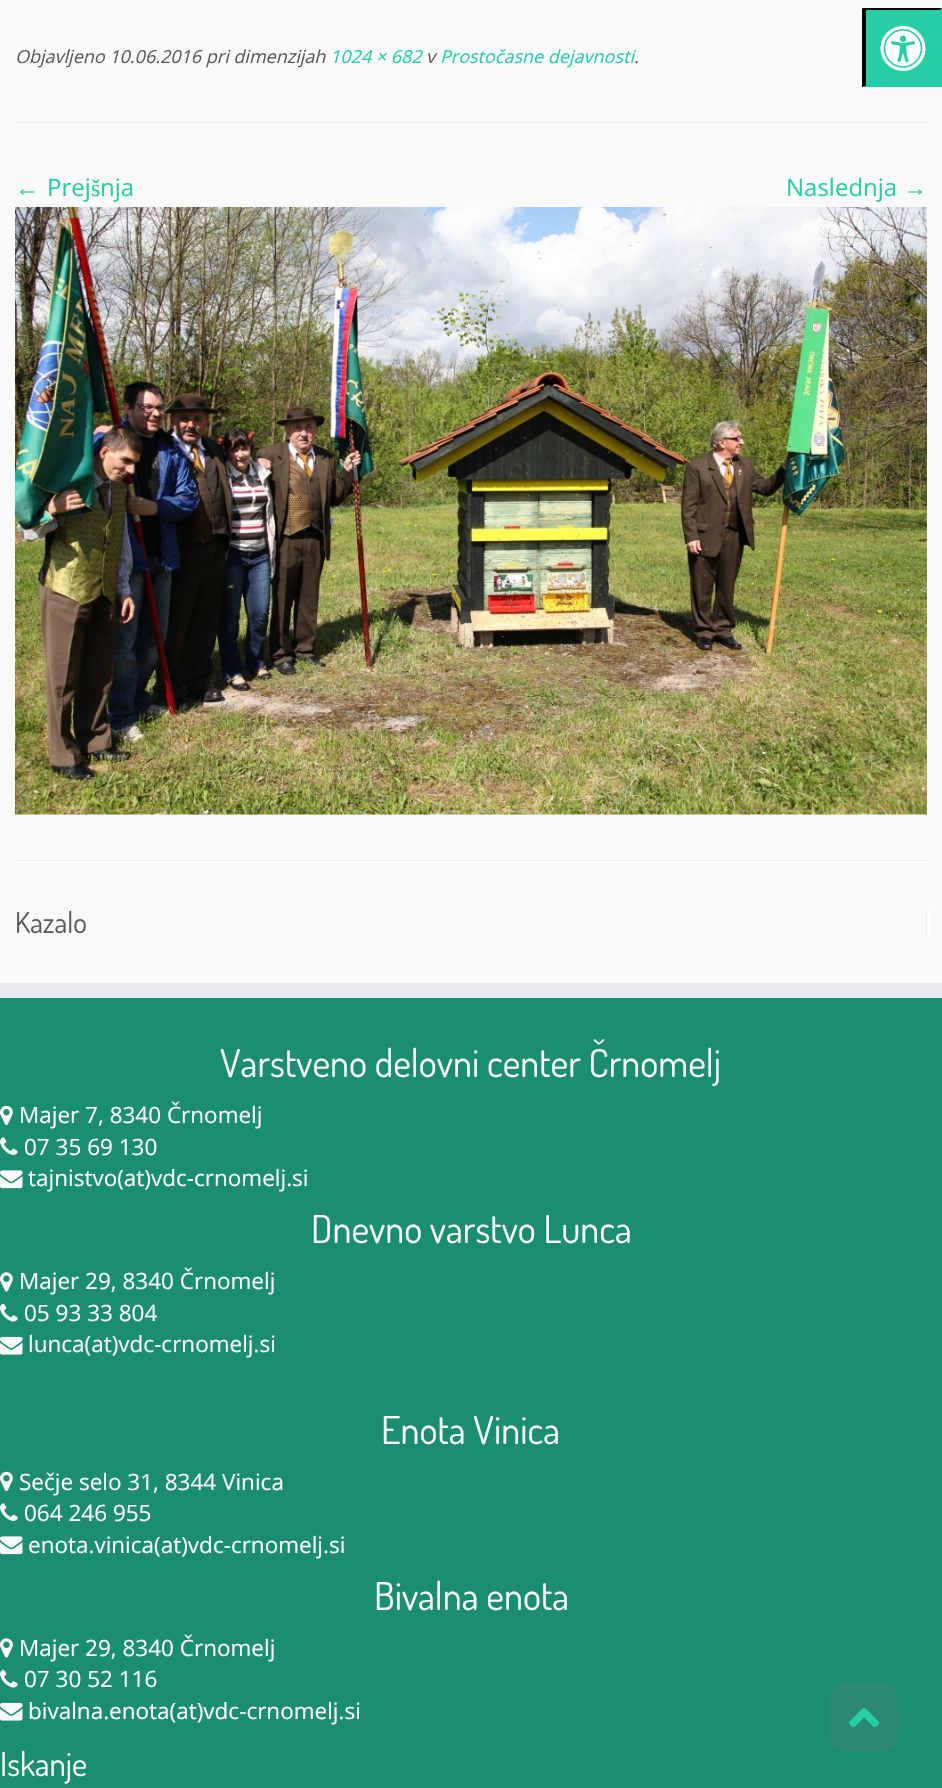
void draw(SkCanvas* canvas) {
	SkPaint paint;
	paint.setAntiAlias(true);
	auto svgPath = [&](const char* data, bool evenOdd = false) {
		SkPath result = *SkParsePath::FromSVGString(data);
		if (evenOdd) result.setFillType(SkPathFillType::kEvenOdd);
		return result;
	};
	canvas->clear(0xfffafafa);
	paint.setColor(0xff27cda5);
	canvas->drawRect(SkRect::MakeXYWH(863, 8, 79, 79), paint);
	paint.setColor(0xff000000);
	canvas->drawPath(svgPath("M862 8H942L940 10H866Z"), paint);
	paint.setColor(0xff27cda5);
	canvas->drawPath(svgPath("M942 8V87L940 86V10Z"), paint);
	canvas->drawPath(svgPath("M942 87H862L866 86H940Z"), paint);
	paint.setColor(0xff000000);
	canvas->drawPath(svgPath("M862 87V8L866 10V86Z"), paint);
	canvas->drawImageRect(SkImages::DeferredFromEncodedData(SkData::MakeFromFileName("img1.png")), SkRect::MakeXYWH(880, 25, 46, 46), SkSamplingOptions());
	SkFont f1(fontMgr->matchFamilyStyle("Open Sans", SkFontStyle::Italic()), 18);
	f1.setSubpixel(true);
	paint.setColor(0xff5a5a5a);
	canvas->drawString("Objavljeno 10.06.2016 pri dimenzijah", 15, 63, f1, paint);
	paint.setColor(0xff27cda5);
	canvas->drawString("1024 × 682", 330, 63, f1, paint);
	paint.setColor(0xff5a5a5a);
	canvas->drawString("v", 426, 63, f1, paint);
	paint.setColor(0xff27cda5);
	canvas->drawString("Prostočasne dejavnosti", 440, 63, f1, paint);
	paint.setColor(0xff5a5a5a);
	canvas->drawString(".", 634, 63, f1, paint);
	paint.setColor(0xffeeeeee);
	canvas->drawRect(SkRect::MakeXYWH(15, 122, 912, 1), paint);
	paint.setColor(0xffffffff);
	canvas->drawRect(SkRect::MakeXYWH(15, 123, 912, 2), paint);
	SkFont f2(fontMgr->matchFamilyStyle("Liberation Serif", SkFontStyle::Normal()), 24);
	f2.setSubpixel(true);
	paint.setColor(0xff27cda5);
	canvas->drawString("←", 15, 196, f2, paint);
	SkFont f3(fontMgr->matchFamilyStyle("Open Sans", SkFontStyle::Normal()), 24);
	f3.setSubpixel(true);
	canvas->drawString("Prej", 47, 196, f3, paint);
	canvas->drawString("š", 91, 196, f2, paint);
	canvas->drawString("nja", 100, 196, f3, paint);
	canvas->drawString("Naslednja", 786, 196, f3, paint);
	canvas->drawString("→", 903, 196, f2, paint);
	canvas->drawImageRect(SkImages::DeferredFromEncodedData(SkData::MakeFromFileName("img2.png")), SkRect::MakeXYWH(15, 207, 912, 608), SkSamplingOptions());
	paint.setColor(0xffeeeeee);
	canvas->drawRect(SkRect::MakeXYWH(15, 860, 912, 1), paint);
	paint.setColor(0xffffffff);
	canvas->drawRect(SkRect::MakeXYWH(15, 861, 912, 2), paint);
	paint.setColor(0xffeeeeee);
	canvas->drawRect(SkRect::MakeXYWH(926, 908, 1, 28), paint);
	SkFont f4(fontMgr->matchFamilyStyle("Dosis", SkFontStyle::Normal()), 29);
	f4.setSubpixel(true);
	paint.setColor(0xff5a5a5a);
	canvas->drawString("Kazalo", 15, 933, f4, paint);
	paint.setColor(0xffffffff);
	canvas->drawRect(SkRect::MakeXYWH(927, 908, 2, 28), paint);
	paint.setColor(0xff1b8d71);
	canvas->drawRect(SkRect::MakeXYWH(0, 998, 942, 790), paint);
	paint.setColor(0xffe9eaee);
	canvas->drawRect(SkRect::MakeXYWH(0, 983, 942, 15), paint);
	SkFont f5(fontMgr->matchFamilyStyle("Dosis", SkFontStyle::Normal()), 38.4);
	f5.setSubpixel(true);
	paint.setColor(0xfffafafa);
	canvas->drawString("Varstveno delovni center Črnomelj", 220, 1077, f5, paint);
	canvas->drawImageRect(SkImages::DeferredFromEncodedData(SkData::MakeFromFileName("img3.png")), SkRect::MakeXYWH(0, 1105, 13, 21), SkSamplingOptions());
	SkFont f6(fontMgr->matchFamilyStyle("Open Sans", SkFontStyle::Normal()), 22.5);
	f6.setSubpixel(true);
	canvas->drawString("Majer 7, 8340 Črnomelj", 19, 1123, f6, paint);
	canvas->drawImageRect(SkImages::DeferredFromEncodedData(SkData::MakeFromFileName("img4.png")), SkRect::MakeXYWH(0, 1137, 18, 18), SkSamplingOptions());
	canvas->drawString("07 35 69 130", 24, 1155, f6, paint);
	canvas->drawImageRect(SkImages::DeferredFromEncodedData(SkData::MakeFromFileName("img5.png")), SkRect::MakeXYWH(0, 1170, 23, 19), SkSamplingOptions());
	canvas->drawString("tajnistvo(at)vdc-crnomelj.si", 28, 1186, f6, paint);
	canvas->drawString("Dnevno varstvo Lunca", 311, 1243, f5, paint);
	canvas->drawImageRect(SkImages::DeferredFromEncodedData(SkData::MakeFromFileName("img6.png")), SkRect::MakeXYWH(0, 1272, 13, 20), SkSamplingOptions());
	canvas->drawString("Majer 29, 8340 Črnomelj", 19, 1289, f6, paint);
	canvas->drawImageRect(SkImages::DeferredFromEncodedData(SkData::MakeFromFileName("img7.png")), SkRect::MakeXYWH(0, 1303, 18, 19), SkSamplingOptions());
	canvas->drawString("05 93 33 804", 24, 1321, f6, paint);
	canvas->drawImageRect(SkImages::DeferredFromEncodedData(SkData::MakeFromFileName("img8.png")), SkRect::MakeXYWH(0, 1336, 23, 19), SkSamplingOptions());
	canvas->drawString("lunca(at)vdc-crnomelj.si", 28, 1352, f6, paint);
	canvas->drawString("Enota Vinica", 381, 1444, f5, paint);
	canvas->drawImageRect(SkImages::DeferredFromEncodedData(SkData::MakeFromFileName("img3.png")), SkRect::MakeXYWH(0, 1471, 13, 21), SkSamplingOptions());
	canvas->drawString("Sečje selo 31, 8344 Vinica", 19, 1490, f6, paint);
	canvas->drawImageRect(SkImages::DeferredFromEncodedData(SkData::MakeFromFileName("img4.png")), SkRect::MakeXYWH(0, 1503, 18, 18), SkSamplingOptions());
	canvas->drawString("064 246 955", 24, 1521, f6, paint);
	canvas->drawImageRect(SkImages::DeferredFromEncodedData(SkData::MakeFromFileName("img5.png")), SkRect::MakeXYWH(0, 1536, 23, 19), SkSamplingOptions());
	canvas->drawString("enota.vinica(at)vdc-crnomelj.si", 28, 1553, f6, paint);
	canvas->drawString("Bivalna enota", 374, 1610, f5, paint);
	canvas->drawImageRect(SkImages::DeferredFromEncodedData(SkData::MakeFromFileName("img6.png")), SkRect::MakeXYWH(0, 1638, 13, 20), SkSamplingOptions());
	canvas->drawString("Majer 29, 8340 Črnomelj", 19, 1656, f6, paint);
	canvas->drawImageRect(SkImages::DeferredFromEncodedData(SkData::MakeFromFileName("img7.png")), SkRect::MakeXYWH(0, 1669, 18, 19), SkSamplingOptions());
	canvas->drawString("07 30 52 116", 24, 1687, f6, paint);
	canvas->drawImageRect(SkImages::DeferredFromEncodedData(SkData::MakeFromFileName("img8.png")), SkRect::MakeXYWH(0, 1702, 23, 19), SkSamplingOptions());
	canvas->drawString("bivalna.enota(at)vdc-crnomelj.si", 28, 1719, f6, paint);
	SkFont f7(fontMgr->matchFamilyStyle("Dosis", SkFontStyle::Normal()), 33);
	f7.setSubpixel(true);
	canvas->drawString("Iskanje", 0, 1776, f7, paint);
	paint.setColor(0xff2d8972);
	canvas->drawRoundRect(SkRect::MakeXYWH(830, 1683, 67, 68), 15, 15, paint);
	canvas->drawImageRect(SkImages::DeferredFromEncodedData(SkData::MakeFromFileName("img9.png")), SkRect::MakeXYWH(849, 1707, 30, 21), SkSamplingOptions());
}
